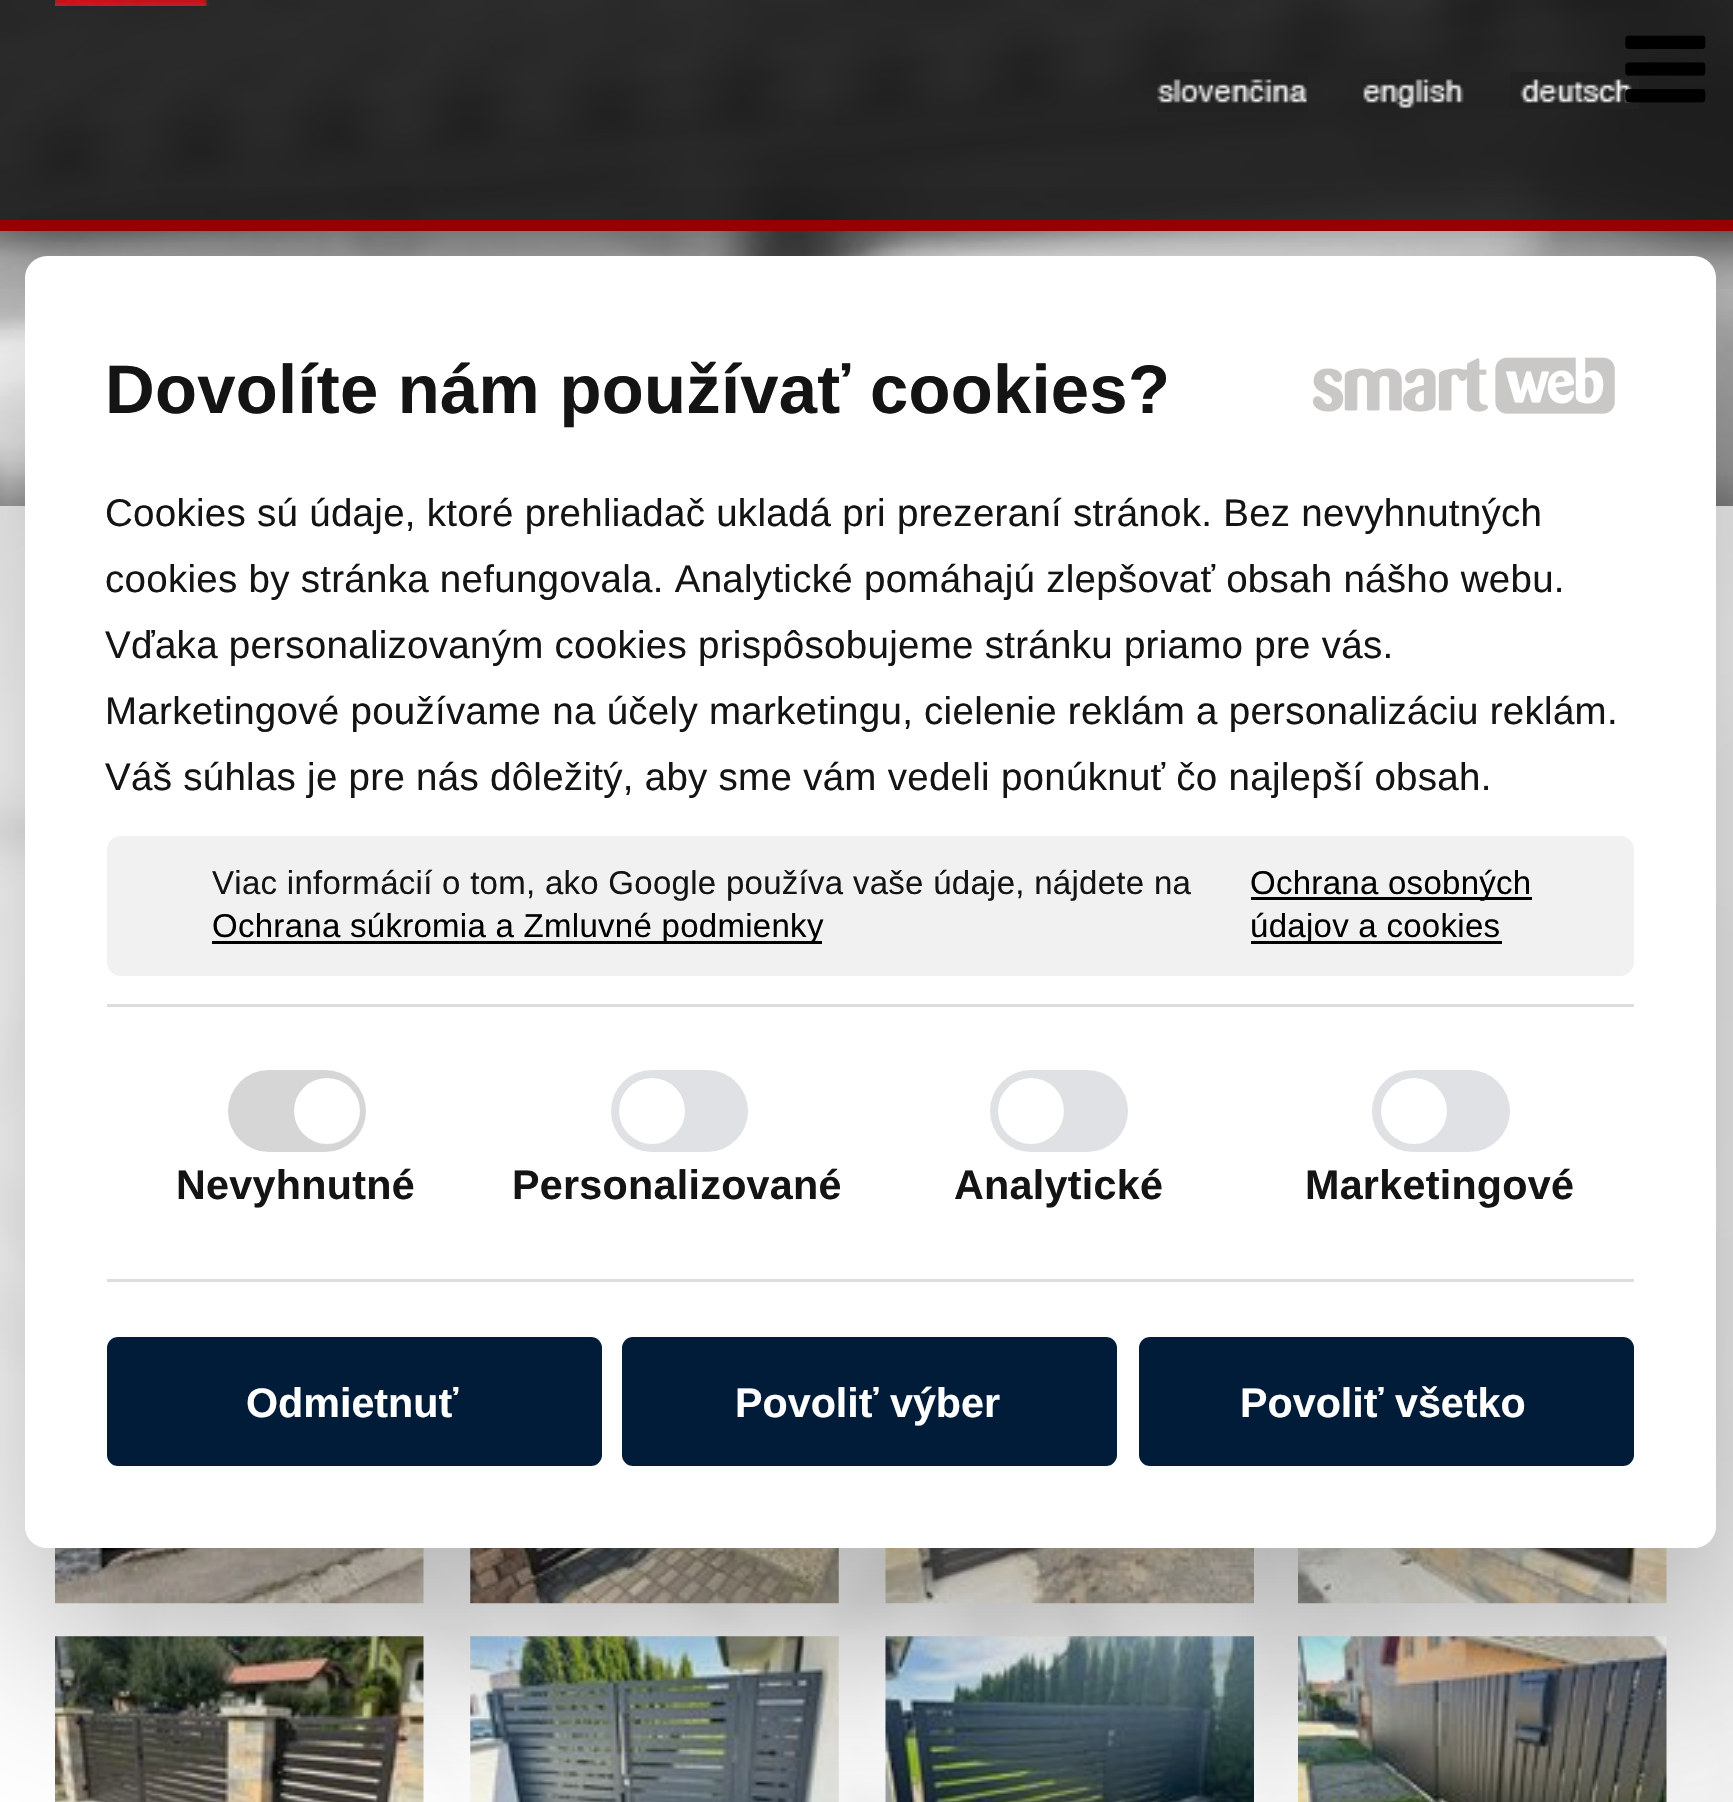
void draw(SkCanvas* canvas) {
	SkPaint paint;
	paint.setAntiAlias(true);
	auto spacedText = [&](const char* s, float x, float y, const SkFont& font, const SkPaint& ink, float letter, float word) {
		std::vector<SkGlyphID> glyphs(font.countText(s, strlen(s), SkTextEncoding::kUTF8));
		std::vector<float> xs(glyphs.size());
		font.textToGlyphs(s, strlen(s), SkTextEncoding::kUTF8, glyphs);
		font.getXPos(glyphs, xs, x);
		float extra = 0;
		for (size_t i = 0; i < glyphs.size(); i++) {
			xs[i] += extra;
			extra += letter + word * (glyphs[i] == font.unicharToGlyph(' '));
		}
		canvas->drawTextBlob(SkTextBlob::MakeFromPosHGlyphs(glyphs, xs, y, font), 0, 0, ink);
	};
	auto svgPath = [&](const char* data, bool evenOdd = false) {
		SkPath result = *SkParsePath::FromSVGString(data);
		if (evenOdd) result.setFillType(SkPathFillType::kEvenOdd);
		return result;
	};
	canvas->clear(0xffffffff);
	canvas->drawImageRect(SkImages::DeferredFromEncodedData(SkData::MakeFromFileName("img1.png")), SkRect::MakeXYWH(0, 0, 1733, 1802), SkSamplingOptions());
	canvas->save();
	canvas->clipRect(SkRect::MakeXYWH(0, 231, 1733, 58));
	paint.setColor(0x66000000);
	paint.setMaskFilter(SkMaskFilter::MakeBlur(kNormal_SkBlurStyle, 27.5));
	canvas->drawRect(SkRect::MakeXYWH(14, 14, 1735, 231), paint);
	paint.setMaskFilter(nullptr);
	canvas->restore();
	paint.setColor(0xe61a1a1a);
	canvas->drawRect(SkRect::MakeXYWH(0, 0, 1733, 220), paint);
	canvas->drawImageRect(SkImages::DeferredFromEncodedData(SkData::MakeFromFileName("img6.png")), SkRect::MakeXYWH(1510, 72, 129, 37), SkSamplingOptions());
	canvas->drawImageRect(SkImages::DeferredFromEncodedData(SkData::MakeFromFileName("img2.png")), SkRect::MakeXYWH(1625, 35, 81, 68), SkSamplingOptions());
	paint.setColor(0xff9a0000);
	canvas->drawRect(SkRect::MakeXYWH(0, 220, 1733, 11), paint);
	canvas->drawImageRect(SkImages::DeferredFromEncodedData(SkData::MakeFromFileName("img3.png")), SkRect::MakeXYWH(55, 0, 155, 6), SkSamplingOptions());
	canvas->drawImageRect(SkImages::DeferredFromEncodedData(SkData::MakeFromFileName("img4.png")), SkRect::MakeXYWH(1157, 72, 151, 40), SkSamplingOptions());
	canvas->drawImageRect(SkImages::DeferredFromEncodedData(SkData::MakeFromFileName("img5.png")), SkRect::MakeXYWH(1363, 79, 101, 30), SkSamplingOptions());
	canvas->save();
	canvas->clipRect(SkRect::MakeXYWH(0, 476, 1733, 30));
	paint.setColor(0x66000000);
	paint.setMaskFilter(SkMaskFilter::MakeBlur(kNormal_SkBlurStyle, 27.5));
	canvas->drawRect(SkRect::MakeXYWH(14, 520, 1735, 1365), paint);
	paint.setMaskFilter(nullptr);
	canvas->restore();
	paint.setColor(0xe6ffffff);
	canvas->drawRect(SkRect::MakeXYWH(0, 506, 1733, 1296), paint);
	canvas->drawImageRect(SkImages::DeferredFromEncodedData(SkData::MakeFromFileName("img9.png")), SkRect::MakeXYWH(55, 1548, 369, 56), SkSamplingOptions());
	canvas->drawImageRect(SkImages::DeferredFromEncodedData(SkData::MakeFromFileName("img10.png")), SkRect::MakeXYWH(470, 1548, 369, 56), SkSamplingOptions());
	canvas->drawImageRect(SkImages::DeferredFromEncodedData(SkData::MakeFromFileName("img11.png")), SkRect::MakeXYWH(885, 1548, 369, 56), SkSamplingOptions());
	canvas->drawImageRect(SkImages::DeferredFromEncodedData(SkData::MakeFromFileName("img12.png")), SkRect::MakeXYWH(1298, 1548, 369, 56), SkSamplingOptions());
	canvas->drawImageRect(SkImages::DeferredFromEncodedData(SkData::MakeFromFileName("img13.png")), SkRect::MakeXYWH(55, 1636, 369, 166), SkSamplingOptions());
	canvas->drawImageRect(SkImages::DeferredFromEncodedData(SkData::MakeFromFileName("img14.png")), SkRect::MakeXYWH(470, 1636, 369, 166), SkSamplingOptions());
	canvas->drawImageRect(SkImages::DeferredFromEncodedData(SkData::MakeFromFileName("img15.png")), SkRect::MakeXYWH(885, 1636, 369, 166), SkSamplingOptions());
	canvas->drawImageRect(SkImages::DeferredFromEncodedData(SkData::MakeFromFileName("img16.png")), SkRect::MakeXYWH(1298, 1636, 369, 166), SkSamplingOptions());
	canvas->save();
	canvas->clipPath(svgPath("M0 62H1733V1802H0ZM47 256H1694C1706 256 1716 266 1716 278V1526C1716 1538 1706 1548 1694 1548H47C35 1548 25 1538 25 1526V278C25 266 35 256 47 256Z", true), true);
	paint.setColor(0x4d000000);
	paint.setMaskFilter(SkMaskFilter::MakeBlur(kNormal_SkBlurStyle, 93.5));
	canvas->drawRoundRect(SkRect::MakeXYWH(25, 344, 1691, 1292), 22, 22, paint);
	paint.setMaskFilter(nullptr);
	canvas->restore();
	paint.setColor(0xffffffff);
	canvas->drawRoundRect(SkRect::MakeXYWH(25, 256, 1691, 1292), 22, 22, paint);
	SkFont f1(fontMgr->matchFamilyStyle("Liberation Sans", SkFontStyle::Bold()), 68.75);
	f1.setSubpixel(true);
	paint.setColor(0xff141414);
	spacedText("Dovolíte nám používať cookies?", 105, 413, f1, paint, 0.28, 0);
	canvas->drawImageRect(SkImages::DeferredFromEncodedData(SkData::MakeFromFileName("img7.png")), SkRect::MakeXYWH(1312, 358, 176, 54), SkSamplingOptions());
	canvas->drawImageRect(SkImages::DeferredFromEncodedData(SkData::MakeFromFileName("img8.png")), SkRect::MakeXYWH(1495, 357, 120, 57), SkSamplingOptions());
	SkFont f2(fontMgr->matchFamilyStyle("Liberation Sans", SkFontStyle::Normal()), 38.5);
	f2.setSubpixel(true);
	spacedText("Cookies sú údaje, ktoré prehliadač ukladá pri prezeraní stránok. Bez nevyhnutných", 105, 526, f2, paint, 0.28, 0);
	spacedText("cookies by stránka nefungovala. Analytické pomáhajú zlepšovať obsah nášho webu.", 105, 592, f2, paint, 0.28, 0);
	spacedText("Vďaka personalizovaným cookies prispôsobujeme stránku priamo pre vás.", 105, 658, f2, paint, 0.28, 0);
	spacedText("Marketingové používame na účely marketingu, cielenie reklám a personalizáciu reklám.", 105, 724, f2, paint, 0.28, 0);
	spacedText("Váš súhlas je pre nás dôležitý, aby sme vám vedeli ponúknuť čo najlepší obsah.", 105, 790, f2, paint, 0.28, 0);
	paint.setColor(0xfff1f1f1);
	canvas->drawRoundRect(SkRect::MakeXYWH(107, 836, 1527, 140), 14, 14, paint);
	SkFont f3(fontMgr->matchFamilyStyle("Liberation Sans", SkFontStyle::Normal()), 33);
	f3.setSubpixel(true);
	paint.setColor(0xff141414);
	spacedText("Viac informácií o tom, ako Google používa vaše údaje, nájdete na", 212, 894, f3, paint, 0.28, 0);
	paint.setColor(0xff000000);
	canvas->drawRect(SkRect::MakeXYWH(212, 941, 610, 3), paint);
	spacedText("Ochrana súkromia a Zmluvné podmienky", 212, 937, f3, paint, 0.28, 0);
	canvas->drawRect(SkRect::MakeXYWH(1251, 897, 281, 3), paint);
	spacedText("Ochrana osobných", 1250, 894, f3, paint, 0.28, 0);
	canvas->drawRect(SkRect::MakeXYWH(1251, 941, 251, 3), paint);
	spacedText("údajov a cookies", 1250, 937, f3, paint, 0.28, 0);
	paint.setColor(0xffdddddd);
	canvas->drawRect(SkRect::MakeXYWH(107, 1004, 1527, 3), paint);
	canvas->drawRect(SkRect::MakeXYWH(107, 1279, 1527, 3), paint);
	paint.setColor(0xffd6d6d6);
	canvas->drawRoundRect(SkRect::MakeXYWH(228, 1070, 138, 82), 41, 41, paint);
	paint.setColor(0xffffffff);
	canvas->drawCircle(327, 1111, 33, paint);
	SkFont f4(fontMgr->matchFamilyStyle("Liberation Sans", SkFontStyle::Bold()), 41.25);
	f4.setSubpixel(true);
	paint.setColor(0xff141414);
	spacedText("Nevyhnutné", 176, 1199, f4, paint, 0.28, 0);
	paint.setColor(0xffdfe1e4);
	canvas->drawRoundRect(SkRect::MakeXYWH(611, 1070, 137, 82), 41, 41, paint);
	paint.setColor(0xffffffff);
	canvas->drawCircle(652, 1111, 33, paint);
	paint.setColor(0xff141414);
	spacedText("Personalizované", 512, 1199, f4, paint, 0.28, 0);
	paint.setColor(0xffdfe1e4);
	canvas->drawRoundRect(SkRect::MakeXYWH(990, 1070, 138, 82), 41, 41, paint);
	paint.setColor(0xffffffff);
	canvas->drawCircle(1031, 1111, 33, paint);
	paint.setColor(0xff141414);
	spacedText("Analytické", 954, 1199, f4, paint, 0.28, 0);
	paint.setColor(0xffdfe1e4);
	canvas->drawRoundRect(SkRect::MakeXYWH(1372, 1070, 138, 82), 41, 41, paint);
	paint.setColor(0xffffffff);
	canvas->drawCircle(1414, 1111, 33, paint);
	paint.setColor(0xff141414);
	spacedText("Marketingové", 1305, 1199, f4, paint, 0.28, 0);
	paint.setColor(0xff011c38);
	canvas->drawRoundRect(SkRect::MakeXYWH(107, 1337, 495, 129), 11, 11, paint);
	paint.setColor(0xffffffff);
	canvas->drawString("Odmietnuť", 246, 1417, f4, paint);
	paint.setColor(0xff011c38);
	canvas->drawRoundRect(SkRect::MakeXYWH(622, 1337, 495, 129), 11, 11, paint);
	paint.setColor(0xffffffff);
	canvas->drawString("Povoliť výber", 735, 1417, f4, paint);
	paint.setColor(0xff011c38);
	canvas->drawRoundRect(SkRect::MakeXYWH(1139, 1337, 495, 129), 11, 11, paint);
	paint.setColor(0xffffffff);
	canvas->drawString("Povoliť všetko", 1240, 1417, f4, paint);
}
